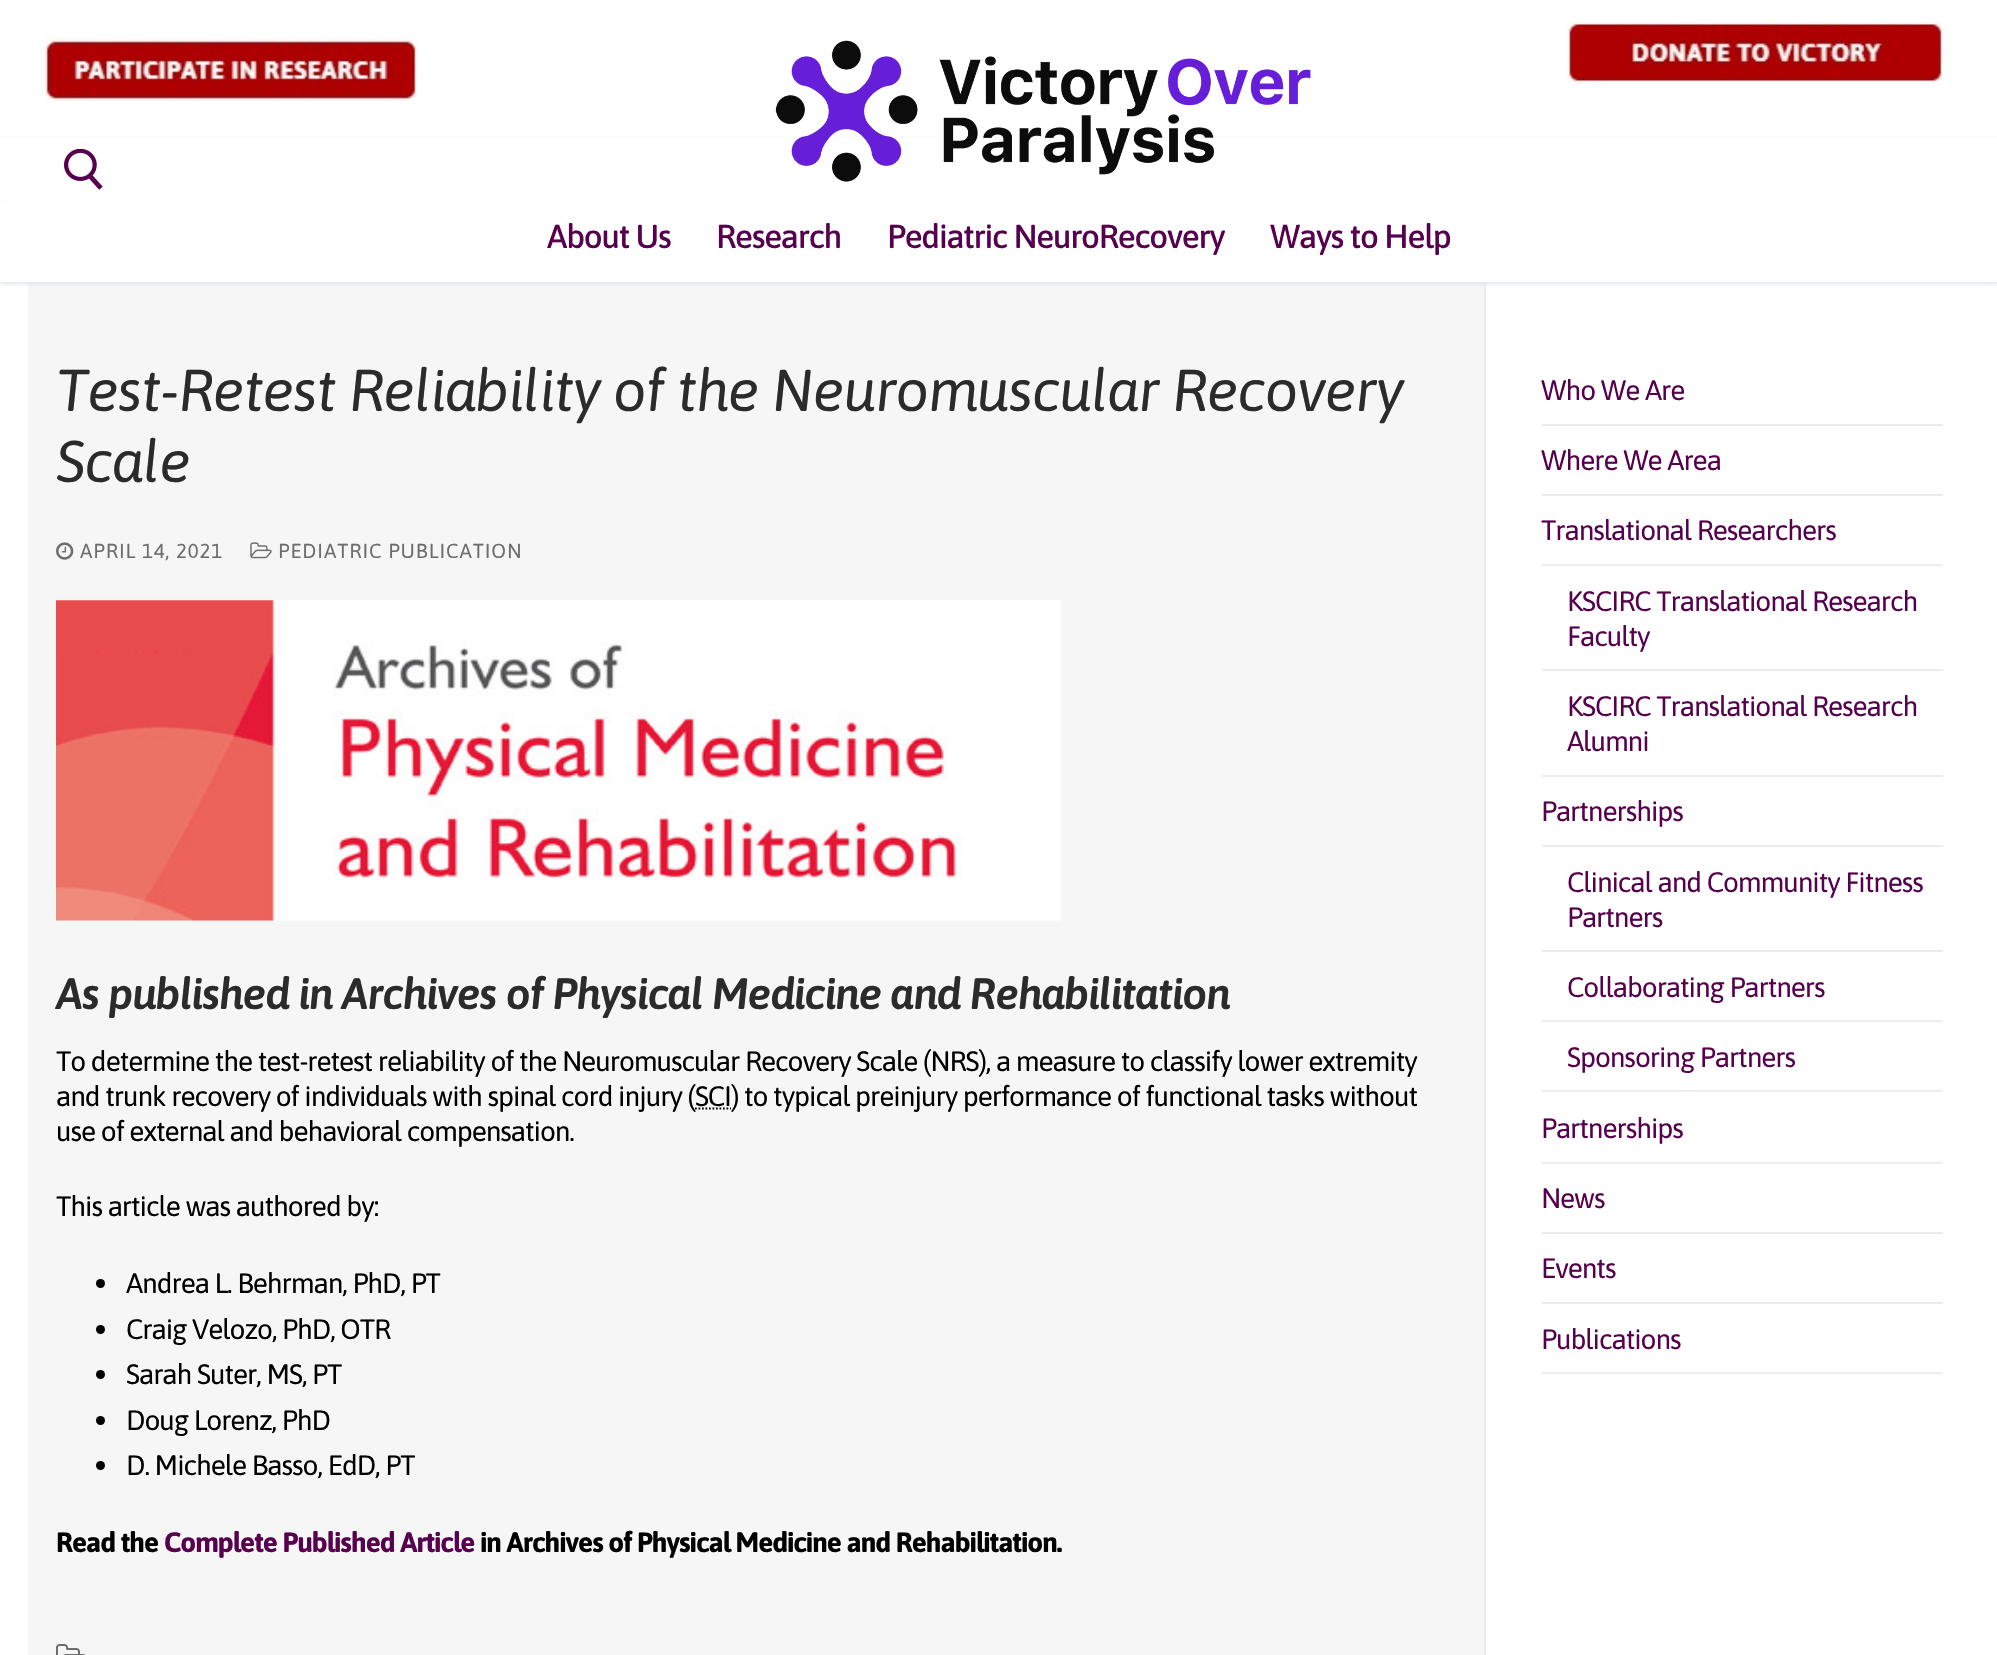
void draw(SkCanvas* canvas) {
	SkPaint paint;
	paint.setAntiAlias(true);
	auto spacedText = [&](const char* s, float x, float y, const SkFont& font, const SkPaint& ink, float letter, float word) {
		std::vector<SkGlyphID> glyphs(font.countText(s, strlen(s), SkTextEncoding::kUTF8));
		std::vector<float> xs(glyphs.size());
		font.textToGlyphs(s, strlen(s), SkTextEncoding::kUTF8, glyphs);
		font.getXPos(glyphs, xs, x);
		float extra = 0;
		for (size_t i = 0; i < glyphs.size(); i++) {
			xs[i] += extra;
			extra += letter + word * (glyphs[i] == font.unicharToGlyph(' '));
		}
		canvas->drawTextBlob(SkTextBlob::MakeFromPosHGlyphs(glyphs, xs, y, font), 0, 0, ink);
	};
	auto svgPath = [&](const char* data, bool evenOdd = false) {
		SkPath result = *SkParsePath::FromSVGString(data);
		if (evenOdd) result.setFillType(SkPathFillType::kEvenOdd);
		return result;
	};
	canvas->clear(0xffffffff);
	canvas->drawImageRect(SkImages::DeferredFromEncodedData(SkData::MakeFromFileName("img1.png")), SkRect::MakeXYWH(45, 37, 373, 65), SkSamplingOptions());
	paint.setColor(0xffe1e5ea);
	paint.setMaskFilter(SkMaskFilter::MakeBlur(kNormal_SkBlurStyle, 2));
	canvas->drawRect(SkRect::MakeXYWH(0, 140, 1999, 63), paint);
	paint.setMaskFilter(nullptr);
	paint.setColor(0xffffffff);
	canvas->drawRect(SkRect::MakeXYWH(0, 138, 1997, 63), paint);
	canvas->drawImageRect(SkImages::DeferredFromEncodedData(SkData::MakeFromFileName("img2.png")), SkRect::MakeXYWH(775, 40, 536, 142), SkSamplingOptions());
	canvas->drawImageRect(SkImages::DeferredFromEncodedData(SkData::MakeFromFileName("img3.png")), SkRect::MakeXYWH(1566, 21, 382, 63), SkSamplingOptions());
	canvas->drawImageRect(SkImages::DeferredFromEncodedData(SkData::MakeFromFileName("img4.png")), SkRect::MakeXYWH(64, 149, 39, 41), SkSamplingOptions());
	paint.setColor(0xfff6f6f6);
	canvas->drawRect(SkRect::MakeXYWH(28, 282, 1456, 1373), paint);
	paint.setColor(0xffeaecee);
	canvas->drawRect(SkRect::MakeXYWH(1484, 282, 2, 1373), paint);
	paint.setColor(0xffe1e5ea);
	paint.setMaskFilter(SkMaskFilter::MakeBlur(kNormal_SkBlurStyle, 2));
	canvas->drawRect(SkRect::MakeXYWH(0, 203, 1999, 81), paint);
	paint.setMaskFilter(nullptr);
	paint.setColor(0xffffffff);
	canvas->drawRect(SkRect::MakeXYWH(0, 201, 1997, 81), paint);
	SkFont f1(fontMgr->matchFamilyStyle("Asap", SkFontStyle(500, SkFontStyle::kNormal_Width, SkFontStyle::kUpright_Slant)), 33.25);
	f1.setSubpixel(true);
	paint.setColor(0xff56004e);
	spacedText("About Us", 547, 248, f1, paint, -1.25, 0);
	spacedText("Research", 716, 248, f1, paint, -1.25, 0);
	spacedText("Pediatric NeuroRecovery", 887, 248, f1, paint, -1.25, 0);
	spacedText("Ways to Help", 1270, 248, f1, paint, -1.25, 0);
	SkFont f2(fontMgr->matchFamilyStyle("Asap", SkFontStyle::Italic()), 58.8);
	f2.setSubpixel(true);
	paint.setColor(0xff2b2b2b);
	spacedText("Test-Retest Reliability of the Neuromuscular Recovery", 56, 411, f2, paint, -1.05, 0);
	spacedText("Scale", 56, 482, f2, paint, -1.05, 0);
	canvas->drawImageRect(SkImages::DeferredFromEncodedData(SkData::MakeFromFileName("img5.png")), SkRect::MakeXYWH(56, 542, 18, 18), SkSamplingOptions());
	SkFont f3(fontMgr->matchFamilyStyle("Asap", SkFontStyle::Normal()), 20.2);
	f3.setSubpixel(true);
	paint.setColor(0xff6d6d6d);
	spacedText("APRIL 14, 2021", 80, 558, f3, paint, 0.9, 0);
	canvas->drawImageRect(SkImages::DeferredFromEncodedData(SkData::MakeFromFileName("img6.png")), SkRect::MakeXYWH(250, 542, 22, 17), SkSamplingOptions());
	spacedText("PEDIATRIC PUBLICATION", 278, 558, f3, paint, 0.9, 0);
	canvas->drawImageRect(SkImages::DeferredFromEncodedData(SkData::MakeFromFileName("img7.png")), SkRect::MakeXYWH(56, 600, 1005, 321), SkSamplingOptions());
	SkFont f4(fontMgr->matchFamilyStyle("Asap", SkFontStyle(600, SkFontStyle::kNormal_Width, SkFontStyle::kItalic_Slant)), 43.75);
	f4.setSubpixel(true);
	paint.setColor(0xff2b2b2b);
	spacedText("As published in Archives of Physical Medicine and Rehabilitation", 56, 1009, f4, paint, -1.05, 0);
	SkFont f5(fontMgr->matchFamilyStyle("Asap", SkFontStyle::Normal()), 28);
	f5.setSubpixel(true);
	paint.setColor(0xff000000);
	spacedText("To determine the test-retest reliability of the Neuromuscular Recovery Scale (NRS), a measure to classify lower extremity", 56, 1071, f5, paint, -1.05, 0);
	spacedText("and trunk recovery of individuals with spinal cord injury (SCI) to typical preinjury performance of functional tasks without", 56, 1106, f5, paint, -1.05, 0);
	paint.setStroke(true);
	paint.setStrokeWidth(1.8);
	paint.setPathEffect(SkDashPathEffect::Make({{1.75f, 1.75f}}, 0));
	canvas->drawPath(svgPath("M695 1108.5H731"), paint);
	paint.setPathEffect(nullptr);
	paint.setStroke(false);
	spacedText("use of external and behavioral compensation.", 56, 1141, f5, paint, -1.05, 0);
	spacedText("This article was authored by:", 56, 1216, f5, paint, -1.05, 0);
	canvas->drawCircle(100.5, 1283.5, 4.5, paint);
	spacedText("Andrea L. Behrman, PhD, PT", 126, 1293, f5, paint, -1.05, 0);
	canvas->drawCircle(100.5, 1329.5, 4.5, paint);
	spacedText("Craig Velozo, PhD, OTR", 126, 1339, f5, paint, -1.05, 0);
	canvas->drawCircle(100.5, 1374.5, 4.5, paint);
	spacedText("Sarah Suter, MS, PT", 126, 1384, f5, paint, -1.05, 0);
	canvas->drawCircle(100.5, 1420.5, 4.5, paint);
	spacedText("Doug Lorenz, PhD", 126, 1430, f5, paint, -1.05, 0);
	canvas->drawCircle(100.5, 1465.5, 4.5, paint);
	spacedText("D. Michele Basso, EdD, PT", 126, 1475, f5, paint, -1.05, 0);
	SkFont f6(fontMgr->matchFamilyStyle("Asap", SkFontStyle::Bold()), 28);
	f6.setSubpixel(true);
	spacedText("Read the", 56, 1552, f6, paint, -1.05, 0);
	paint.setColor(0xff56004e);
	spacedText("Complete Published Article", 164, 1552, f6, paint, -1.05, 0);
	paint.setColor(0xff000000);
	spacedText("in Archives of Physical Medicine and Rehabilitation.", 480, 1552, f6, paint, -1.05, 0);
	canvas->drawImageRect(SkImages::DeferredFromEncodedData(SkData::MakeFromFileName("img8.png")), SkRect::MakeXYWH(56, 1644, 30, 11), SkSamplingOptions());
	paint.setColor(0xffeaecee);
	canvas->drawRect(SkRect::MakeXYWH(1542, 424, 401, 2), paint);
	paint.setColor(0xff56004e);
	spacedText("Who We Are", 1541, 400, f5, paint, -1.05, 0);
	paint.setColor(0xffeaecee);
	canvas->drawRect(SkRect::MakeXYWH(1542, 494, 401, 2), paint);
	paint.setColor(0xff56004e);
	spacedText("Where We Area", 1541, 470, f5, paint, -1.05, 0);
	paint.setColor(0xffeaecee);
	canvas->drawRect(SkRect::MakeXYWH(1542, 564, 401, 2), paint);
	paint.setColor(0xff56004e);
	spacedText("Translational Researchers", 1541, 540, f5, paint, -1.05, 0);
	paint.setColor(0xffeaecee);
	canvas->drawRect(SkRect::MakeXYWH(1542, 669, 401, 2), paint);
	paint.setColor(0xff56004e);
	spacedText("KSCIRC Translational Research", 1567, 611, f5, paint, -1.05, 0);
	spacedText("Faculty", 1567, 646, f5, paint, -1.05, 0);
	paint.setColor(0xffeaecee);
	canvas->drawRect(SkRect::MakeXYWH(1542, 775, 401, 2), paint);
	paint.setColor(0xff56004e);
	spacedText("KSCIRC Translational Research", 1567, 716, f5, paint, -1.05, 0);
	spacedText("Alumni", 1567, 751, f5, paint, -1.05, 0);
	paint.setColor(0xffeaecee);
	canvas->drawRect(SkRect::MakeXYWH(1542, 845, 401, 2), paint);
	paint.setColor(0xff56004e);
	spacedText("Partnerships", 1541, 821, f5, paint, -1.05, 0);
	paint.setColor(0xffeaecee);
	canvas->drawRect(SkRect::MakeXYWH(1542, 950, 401, 2), paint);
	paint.setColor(0xff56004e);
	spacedText("Clinical and Community Fitness", 1567, 892, f5, paint, -1.05, 0);
	spacedText("Partners", 1567, 927, f5, paint, -1.05, 0);
	paint.setColor(0xffeaecee);
	canvas->drawRect(SkRect::MakeXYWH(1542, 1020, 401, 2), paint);
	paint.setColor(0xff56004e);
	spacedText("Collaborating Partners", 1567, 997, f5, paint, -1.05, 0);
	paint.setColor(0xffeaecee);
	canvas->drawRect(SkRect::MakeXYWH(1542, 1090, 401, 2), paint);
	paint.setColor(0xff56004e);
	spacedText("Sponsoring Partners", 1567, 1067, f5, paint, -1.05, 0);
	paint.setColor(0xffeaecee);
	canvas->drawRect(SkRect::MakeXYWH(1542, 1162, 401, 2), paint);
	paint.setColor(0xff56004e);
	spacedText("Partnerships", 1541, 1138, f5, paint, -1.05, 0);
	paint.setColor(0xffeaecee);
	canvas->drawRect(SkRect::MakeXYWH(1542, 1232, 401, 2), paint);
	paint.setColor(0xff56004e);
	spacedText("News", 1541, 1208, f5, paint, -1.05, 0);
	paint.setColor(0xffeaecee);
	canvas->drawRect(SkRect::MakeXYWH(1542, 1302, 401, 2), paint);
	paint.setColor(0xff56004e);
	spacedText("Events", 1541, 1278, f5, paint, -1.05, 0);
	paint.setColor(0xffeaecee);
	canvas->drawRect(SkRect::MakeXYWH(1542, 1372, 401, 2), paint);
	paint.setColor(0xff56004e);
	spacedText("Publications", 1541, 1349, f5, paint, -1.05, 0);
}
